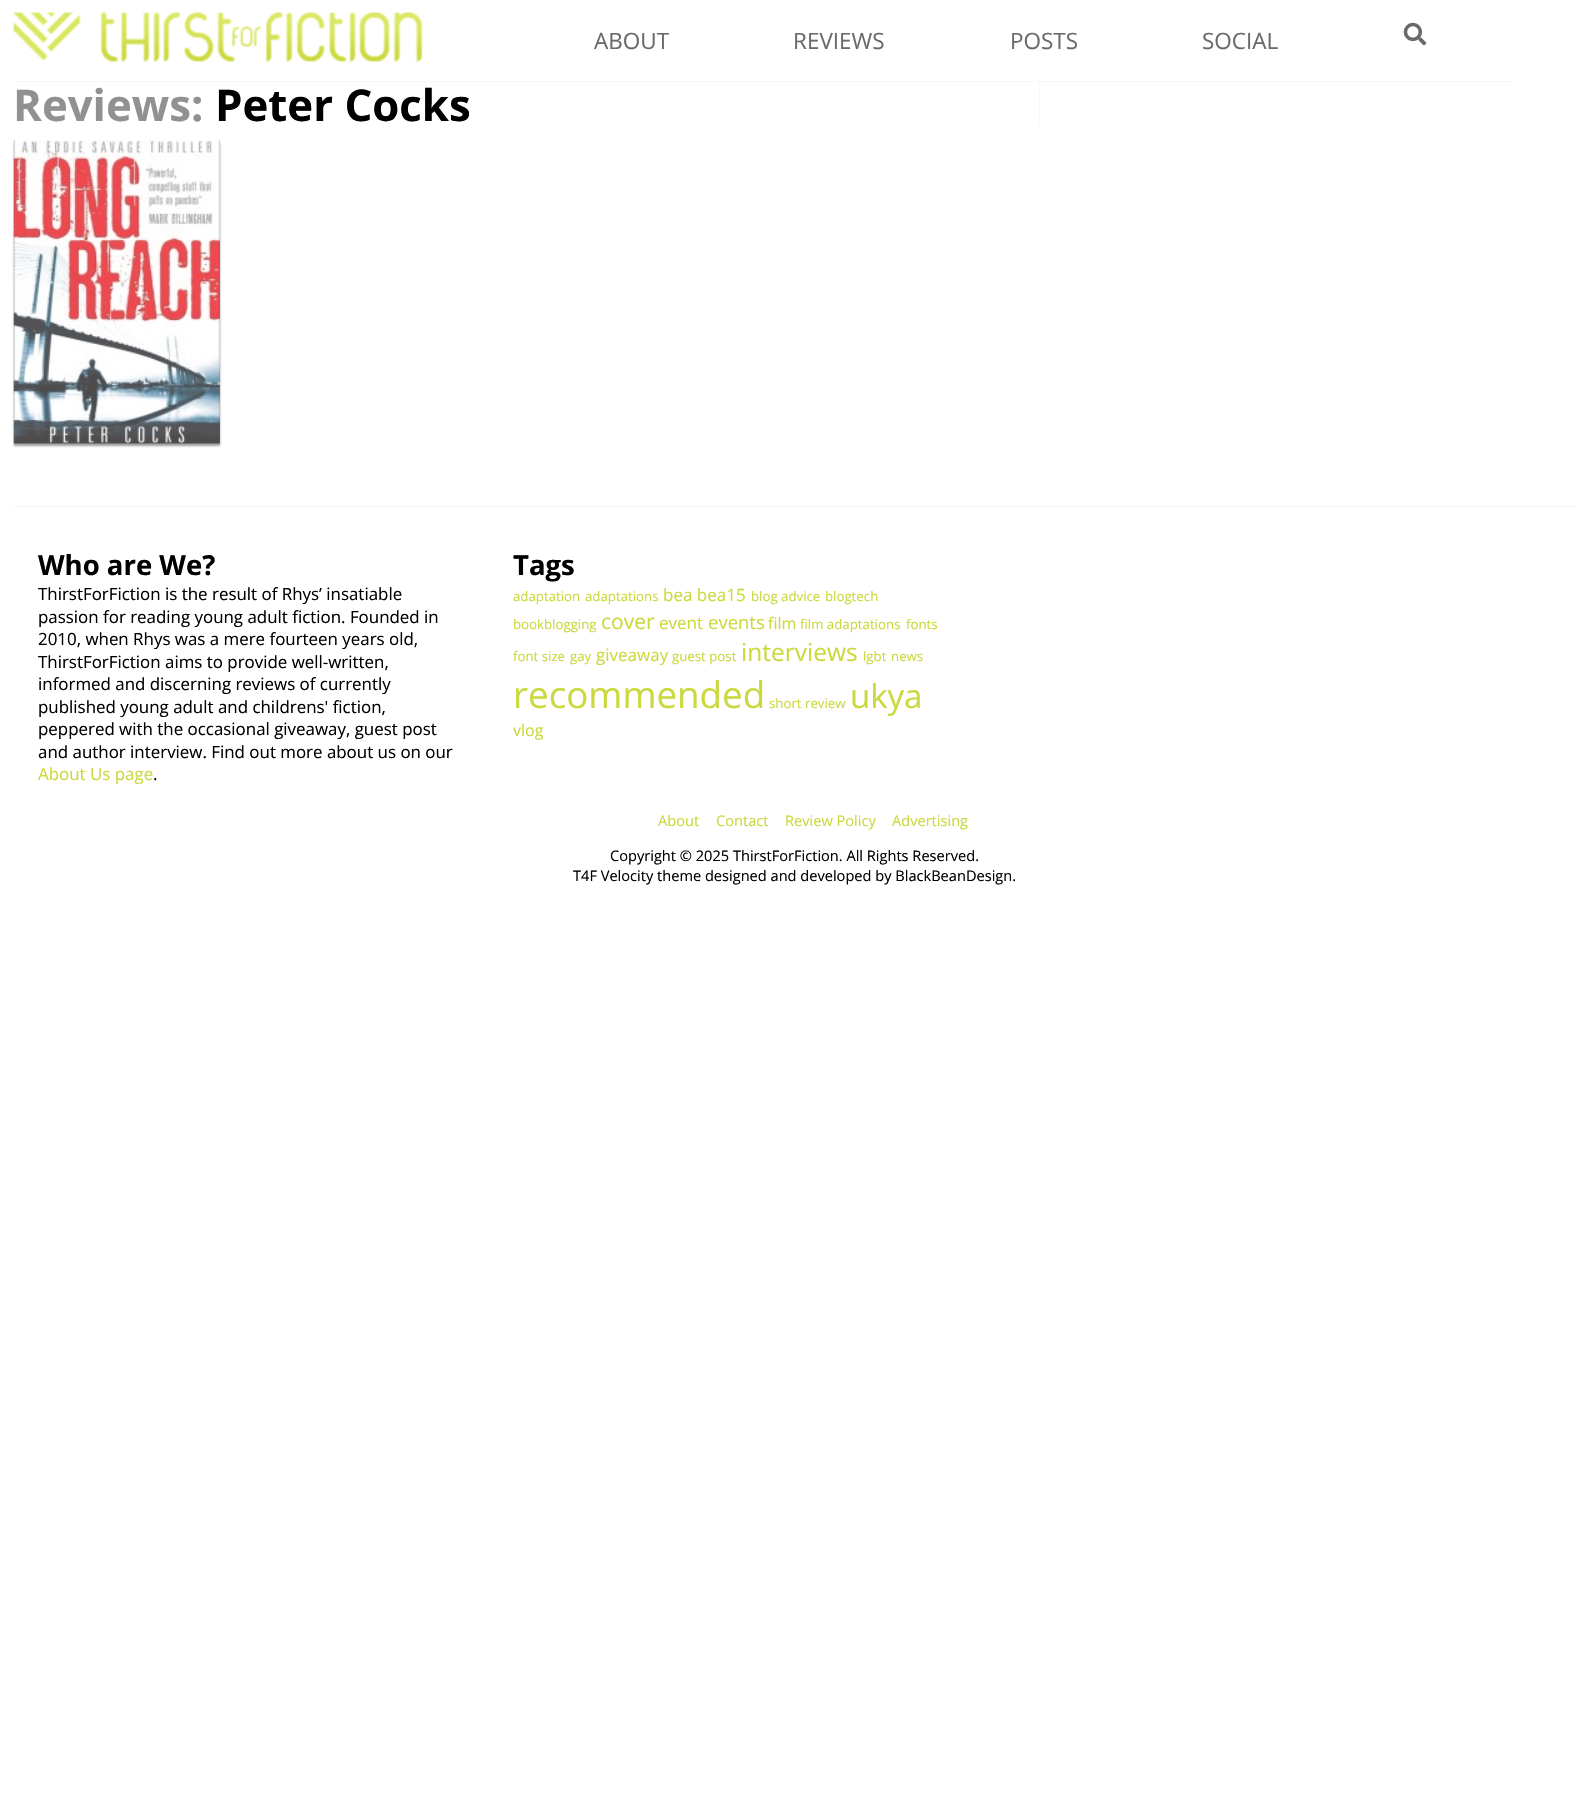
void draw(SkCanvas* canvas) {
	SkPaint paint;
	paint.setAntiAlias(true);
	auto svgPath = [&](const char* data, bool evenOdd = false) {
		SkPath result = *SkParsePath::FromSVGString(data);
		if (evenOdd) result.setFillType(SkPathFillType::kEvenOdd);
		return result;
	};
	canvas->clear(0xffffffff);
	paint.setColor(0xfff7f7f7);
	canvas->drawRect(SkRect::MakeXYWH(1039, 75, 1, 50), paint);
	paint.setColor(0xffffffff);
	canvas->drawRect(SkRect::MakeXYWH(1039, 75, 1, 8), paint);
	paint.setColor(0xfff7f7f7);
	canvas->drawRect(SkRect::MakeXYWH(14, 81, 1500, 1), paint);
	canvas->drawImageRect(SkImages::DeferredFromEncodedData(SkData::MakeFromFileName("img1.png")), SkRect::MakeXYWH(13, 12, 410, 50), SkSamplingOptions());
	SkFont f1(fontMgr->matchFamilyStyle("Open Sans", SkFontStyle::Normal()), 22.5);
	f1.setSubpixel(true);
	paint.setColor(0xff6a6a6a);
	canvas->drawString("ABOUT", 594, 49, f1, paint);
	canvas->drawString("REVIEWS", 793, 49, f1, paint);
	canvas->drawString("POSTS", 1010, 49, f1, paint);
	canvas->drawString("SOCIAL", 1202, 49, f1, paint);
	canvas->drawImageRect(SkImages::DeferredFromEncodedData(SkData::MakeFromFileName("img2.png")), SkRect::MakeXYWH(1403, 22, 24, 24), SkSamplingOptions());
	SkFont f2(fontMgr->matchFamilyStyle("Open Sans", SkFontStyle::Bold()), 43.75);
	f2.setSubpixel(true);
	paint.setColor(0xff919191);
	canvas->drawString("Reviews:", 13, 121, f2, paint);
	paint.setColor(0xff000000);
	canvas->drawString("Peter Cocks", 215, 121, f2, paint);
	canvas->save();
	canvas->clipPath(svgPath("M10 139H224V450H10ZM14 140H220V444H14Z", true), true);
	paint.setColor(0xffa0a0a0);
	paint.setMaskFilter(SkMaskFilter::MakeBlur(kNormal_SkBlurStyle, 1));
	canvas->drawRect(SkRect::MakeXYWH(14, 143, 206, 303), paint);
	paint.setMaskFilter(nullptr);
	canvas->restore();
	canvas->drawImageRect(SkImages::DeferredFromEncodedData(SkData::MakeFromFileName("img3.png")), SkRect::MakeXYWH(13, 140, 207, 304), SkSamplingOptions());
	paint.setColor(0xfff2f2f2);
	canvas->drawRect(SkRect::MakeXYWH(14, 506, 1562, 1), paint);
	SkFont f3(fontMgr->matchFamilyStyle("Open Sans", SkFontStyle::Bold()), 27.5);
	f3.setSubpixel(true);
	paint.setColor(0xff000000);
	canvas->drawString("Who are We?", 38, 575, f3, paint);
	SkFont f4(fontMgr->matchFamilyStyle("Open Sans", SkFontStyle::Normal()), 16.9);
	f4.setSubpixel(true);
	canvas->drawString("ThirstForFiction is the result of Rhys’ insatiable", 38, 600, f4, paint);
	canvas->drawString("passion for reading young adult fiction. Founded in", 38, 623, f4, paint);
	canvas->drawString("2010, when Rhys was a mere fourteen years old,", 38, 645, f4, paint);
	canvas->drawString("ThirstForFiction aims to provide well-written,", 38, 668, f4, paint);
	canvas->drawString("informed and discerning reviews of currently", 38, 690, f4, paint);
	canvas->drawString("published young adult and childrens' fiction,", 38, 713, f4, paint);
	canvas->drawString("peppered with the occasional giveaway, guest post", 38, 735, f4, paint);
	canvas->drawString("and author interview. Find out more about us on our", 38, 758, f4, paint);
	paint.setColor(0xffcbd93e);
	canvas->drawString("About Us page", 38, 780, f4, paint);
	paint.setColor(0xff000000);
	canvas->drawString(".", 153, 780, f4, paint);
	canvas->drawString("Tags", 513, 575, f3, paint);
	SkFont f5(fontMgr->matchFamilyStyle("Open Sans", SkFontStyle::Normal()), 13.25);
	f5.setSubpixel(true);
	paint.setColor(0xffcbd93e);
	canvas->drawString("adaptation", 513, 601, f5, paint);
	canvas->drawString("adaptations", 585, 601, f5, paint);
	SkFont f6(fontMgr->matchFamilyStyle("Open Sans", SkFontStyle::Normal()), 17);
	f6.setSubpixel(true);
	canvas->drawString("bea bea15", 663, 601, f6, paint);
	canvas->drawString("blog advice", 751, 601, f5, paint);
	canvas->drawString("blogtech", 825, 601, f5, paint);
	canvas->drawString("bookblogging", 513, 629, f5, paint);
	SkFont f7(fontMgr->matchFamilyStyle("Open Sans", SkFontStyle::Normal()), 21);
	f7.setSubpixel(true);
	canvas->drawString("cover", 601, 629, f7, paint);
	canvas->drawString("event", 659, 629, f6, paint);
	SkFont f8(fontMgr->matchFamilyStyle("Open Sans", SkFontStyle::Normal()), 18.5);
	f8.setSubpixel(true);
	canvas->drawString("events", 708, 629, f8, paint);
	SkFont f9(fontMgr->matchFamilyStyle("Open Sans", SkFontStyle::Normal()), 16);
	f9.setSubpixel(true);
	canvas->drawString("film", 768, 629, f9, paint);
	canvas->drawString("film adaptations", 800, 629, f5, paint);
	canvas->drawString("fonts", 906, 629, f5, paint);
	canvas->drawString("font size", 513, 661, f5, paint);
	canvas->drawString("gay", 570, 661, f5, paint);
	canvas->drawString("giveaway", 596, 661, f6, paint);
	canvas->drawString("guest post", 672, 661, f5, paint);
	SkFont f10(fontMgr->matchFamilyStyle("Open Sans", SkFontStyle::Normal()), 24.5);
	f10.setSubpixel(true);
	canvas->drawString("interviews", 741, 661, f10, paint);
	canvas->drawString("lgbt", 863, 661, f5, paint);
	canvas->drawString("news", 891, 661, f5, paint);
	SkFont f11(fontMgr->matchFamilyStyle("Open Sans", SkFontStyle::Normal()), 36.75);
	f11.setSubpixel(true);
	canvas->drawString("recommended", 513, 708, f11, paint);
	canvas->drawString("short review", 769, 708, f5, paint);
	SkFont f12(fontMgr->matchFamilyStyle("Open Sans", SkFontStyle::Normal()), 33);
	f12.setSubpixel(true);
	canvas->drawString("ukya", 850, 708, f12, paint);
	canvas->drawString("vlog", 513, 736, f9, paint);
	SkFont f13(fontMgr->matchFamilyStyle("Open Sans", SkFontStyle::Normal()), 14.6);
	f13.setSubpixel(true);
	canvas->drawString("About", 658, 826, f13, paint);
	canvas->drawString("Contact", 716, 826, f13, paint);
	canvas->drawString("Review Policy", 785, 826, f13, paint);
	canvas->drawString("Advertising", 892, 826, f13, paint);
	paint.setColor(0xff000000);
	canvas->drawString("Copyright © 2025 ThirstForFiction. All Rights Reserved.", 610, 861, f13, paint);
	canvas->drawString("T4F Velocity theme designed and developed by BlackBeanDesign.", 573, 881, f13, paint);
}
